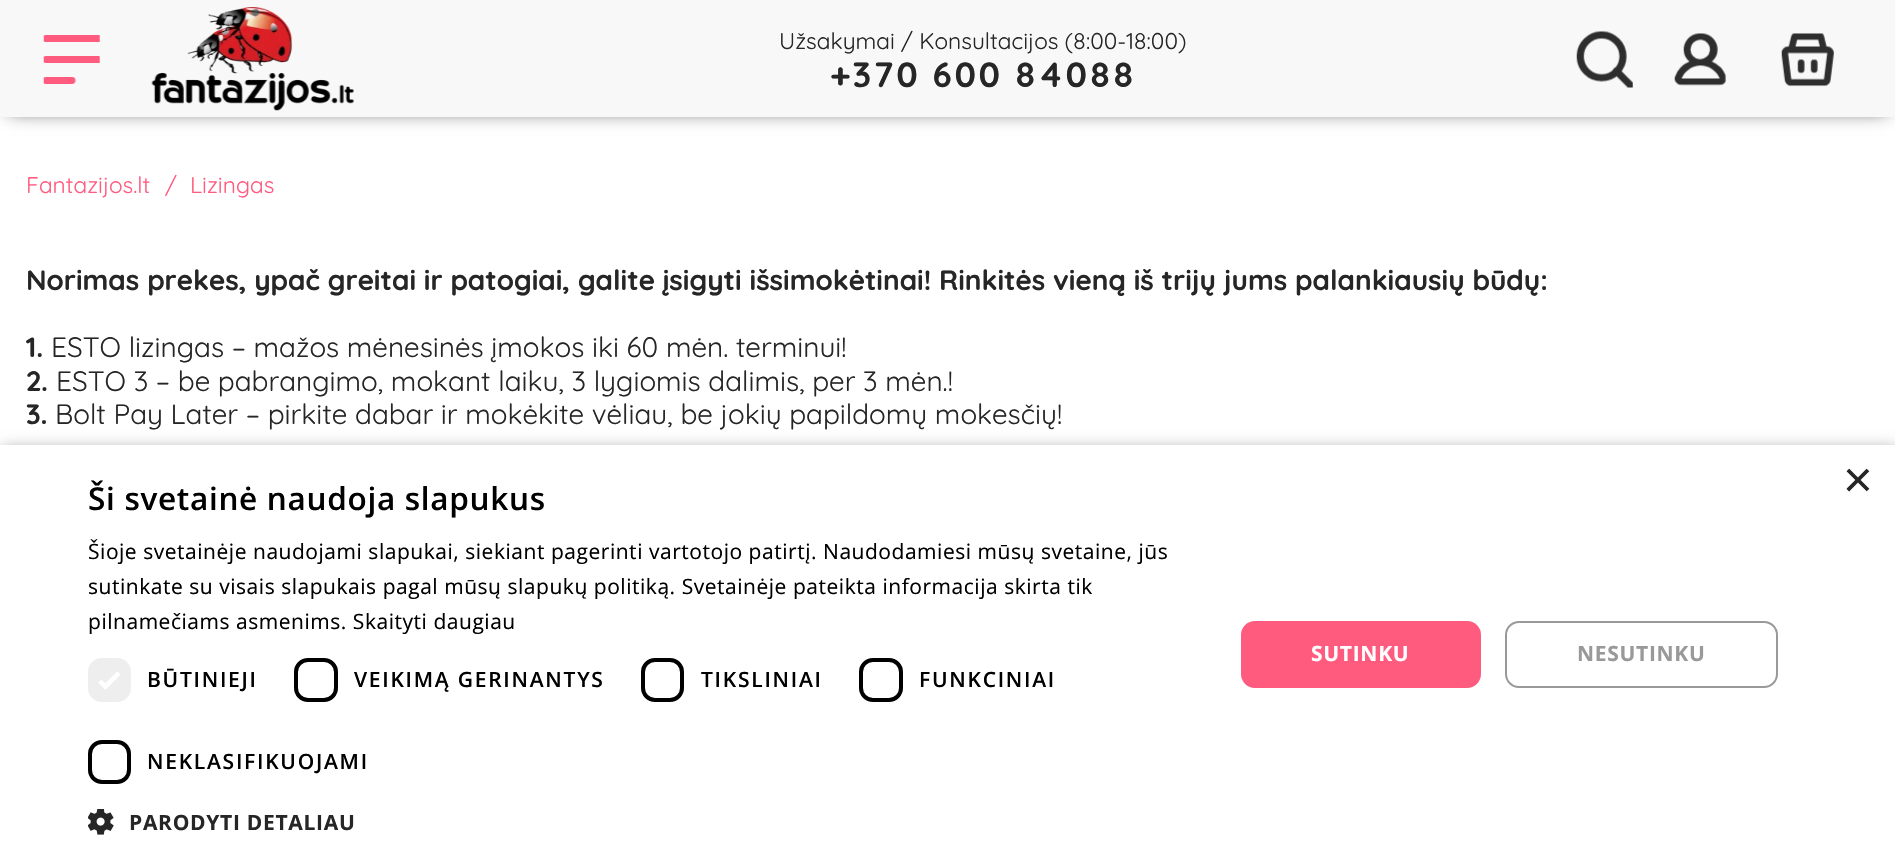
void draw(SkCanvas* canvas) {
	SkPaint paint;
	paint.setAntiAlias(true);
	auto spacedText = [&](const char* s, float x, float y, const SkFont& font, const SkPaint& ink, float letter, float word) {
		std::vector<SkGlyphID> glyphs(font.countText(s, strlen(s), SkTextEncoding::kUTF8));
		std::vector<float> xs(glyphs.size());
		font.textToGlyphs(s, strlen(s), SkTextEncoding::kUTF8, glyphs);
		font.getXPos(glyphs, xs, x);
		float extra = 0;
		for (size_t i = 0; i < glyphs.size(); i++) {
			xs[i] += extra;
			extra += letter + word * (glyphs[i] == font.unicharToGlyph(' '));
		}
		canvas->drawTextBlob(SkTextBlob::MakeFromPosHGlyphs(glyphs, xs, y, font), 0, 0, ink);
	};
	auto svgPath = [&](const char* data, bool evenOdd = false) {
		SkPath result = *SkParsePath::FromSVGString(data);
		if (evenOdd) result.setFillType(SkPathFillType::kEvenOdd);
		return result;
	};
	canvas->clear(0xffffffff);
	paint.setColor(0xff262626);
	paint.setMaskFilter(SkMaskFilter::MakeBlur(kNormal_SkBlurStyle, 9));
	canvas->drawRect(SkRect::MakeXYWH(9, 11, 1878, 99), paint);
	paint.setMaskFilter(nullptr);
	paint.setColor(0xfff8f8f8);
	canvas->drawRect(SkRect::MakeXYWH(0, 0, 1895, 117), paint);
	canvas->drawImageRect(SkImages::DeferredFromEncodedData(SkData::MakeFromFileName("img1.png")), SkRect::MakeXYWH(43, 35, 57, 49), SkSamplingOptions());
	canvas->drawImageRect(SkImages::DeferredFromEncodedData(SkData::MakeFromFileName("img2.png")), SkRect::MakeXYWH(151, 7, 203, 104), SkSamplingOptions());
	SkFont f1(fontMgr->matchFamilyStyle("Quicksand", SkFontStyle::Normal()), 22.75);
	f1.setSubpixel(true);
	paint.setColor(0xff262626);
	canvas->drawString("Užsakymai / Konsultacijos (8:00-18:00)", 779, 49, f1, paint);
	SkFont f2(fontMgr->matchFamilyStyle("Quicksand", SkFontStyle::Bold()), 35);
	f2.setSubpixel(true);
	spacedText("+370 600 84088", 830, 87, f2, paint, 2.6, 0);
	canvas->drawImageRect(SkImages::DeferredFromEncodedData(SkData::MakeFromFileName("img3.png")), SkRect::MakeXYWH(1576, 31, 57, 57), SkSamplingOptions());
	canvas->drawImageRect(SkImages::DeferredFromEncodedData(SkData::MakeFromFileName("img4.png")), SkRect::MakeXYWH(1674, 33, 52, 53), SkSamplingOptions());
	canvas->drawImageRect(SkImages::DeferredFromEncodedData(SkData::MakeFromFileName("img5.png")), SkRect::MakeXYWH(1781, 33, 53, 54), SkSamplingOptions());
	paint.setColor(0xffff5b7f);
	canvas->drawString("Fantazijos.lt", 26, 193, f1, paint);
	canvas->drawString("/", 165, 193, f1, paint);
	canvas->drawString("Lizingas", 190, 193, f1, paint);
	SkFont f3(fontMgr->matchFamilyStyle("Quicksand", SkFontStyle::Bold()), 28);
	f3.setSubpixel(true);
	paint.setColor(0xff262626);
	canvas->drawString("Norimas prekes, ypač greitai ir patogiai, galite įsigyti išsimokėtinai! Rinkitės vieną iš trijų jums palankiausių būdų:", 26, 290, f3, paint);
	canvas->drawString("1.", 26, 357, f3, paint);
	SkFont f4(fontMgr->matchFamilyStyle("Quicksand", SkFontStyle::Normal()), 28);
	f4.setSubpixel(true);
	canvas->drawString("ESTO lizingas – mažos mėnesinės įmokos iki 60 mėn. terminui!", 51, 357, f4, paint);
	canvas->drawString("2.", 26, 391, f3, paint);
	canvas->drawString("ESTO 3 – be pabrangimo, mokant laiku, 3 lygiomis dalimis, per 3 mėn.!", 56, 391, f4, paint);
	canvas->drawString("3.", 26, 424, f3, paint);
	canvas->drawString("Bolt Pay Later – pirkite dabar ir mokėkite vėliau, be jokių papildomų mokesčių!", 55, 424, f4, paint);
	paint.setColor(0x59000000);
	paint.setMaskFilter(SkMaskFilter::MakeBlur(kNormal_SkBlurStyle, 7));
	canvas->drawRect(SkRect::MakeXYWH(2, 448, 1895, 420), paint);
	paint.setMaskFilter(nullptr);
	paint.setColor(0xffffffff);
	canvas->drawRect(SkRect::MakeXYWH(0, 445, 1895, 419), paint);
	SkFont f5(fontMgr->matchFamilyStyle("Open Sans", SkFontStyle(600, SkFontStyle::kNormal_Width, SkFontStyle::kUpright_Slant)), 31.5);
	f5.setSubpixel(true);
	paint.setColor(0xff000000);
	spacedText("Ši svetainė naudoja slapukus", 88, 510, f5, paint, 0.7, 0);
	SkFont f6(fontMgr->matchFamilyStyle("Open Sans", SkFontStyle::Normal()), 21);
	f6.setSubpixel(true);
	spacedText("Šioje svetainėje naudojami slapukai, siekiant pagerinti vartotojo patirtį. Naudodamiesi mūsų svetaine, jūs", 88, 559, f6, paint, 0.53, 0);
	spacedText("sutinkate su visais slapukais pagal mūsų slapukų politiką. Svetainėje pateikta informacija skirta tik", 88, 594, f6, paint, 0.53, 0);
	spacedText("pilnamečiams asmenims. Skaityti daugiau", 88, 629, f6, paint, 0.53, 0);
	paint.setColor(0xffeeeeee);
	canvas->drawRoundRect(SkRect::MakeXYWH(88, 658, 43, 44), 14, 14, paint);
	paint.setStroke(true);
	paint.setStrokeWidth(4.6);
	paint.setColor(0xffffffff);
	canvas->drawPath(svgPath("M99.5 681L105.5 686.5L119 673"), paint);
	SkFont f7(fontMgr->matchFamilyStyle("Open Sans", SkFontStyle(600, SkFontStyle::kNormal_Width, SkFontStyle::kUpright_Slant)), 21);
	f7.setSubpixel(true);
	paint.setStroke(false);
	paint.setColor(0xff000000);
	spacedText("BŪTINIEJI", 147, 687, f7, paint, 1.75, 0);
	paint.setStroke(true);
	paint.setStrokeWidth(4);
	canvas->drawRoundRect(SkRect::MakeXYWH(296, 660, 40, 40), 12, 12, paint);
	paint.setStroke(false);
	spacedText("VEIKIMĄ GERINANTYS", 354, 687, f7, paint, 1.75, 0);
	paint.setStroke(true);
	canvas->drawRoundRect(SkRect::MakeXYWH(643, 660, 39, 40), 12, 12, paint);
	paint.setStroke(false);
	spacedText("TIKSLINIAI", 701, 687, f7, paint, 1.75, 0);
	paint.setStroke(true);
	canvas->drawRoundRect(SkRect::MakeXYWH(861, 660, 40, 40), 12, 12, paint);
	paint.setStroke(false);
	spacedText("FUNKCINIAI", 919, 687, f7, paint, 1.75, 0);
	paint.setStroke(true);
	canvas->drawRoundRect(SkRect::MakeXYWH(90, 742, 39, 40), 12, 12, paint);
	paint.setStroke(false);
	spacedText("NEKLASIFIKUOJAMI", 147, 769, f7, paint, 1.75, 0);
	canvas->drawImageRect(SkImages::DeferredFromEncodedData(SkData::MakeFromFileName("img6.png")), SkRect::MakeXYWH(88, 809, 26, 26), SkSamplingOptions());
	SkFont f8(fontMgr->matchFamilyStyle("Open Sans", SkFontStyle::Bold()), 21);
	f8.setSubpixel(true);
	paint.setColor(0xff262626);
	spacedText("PARODYTI DETALIAU", 129, 830, f8, paint, 0.7, 0);
	paint.setColor(0xffff5b7f);
	canvas->drawRoundRect(SkRect::MakeXYWH(1241, 621, 240, 67), 14, 14, paint);
	paint.setColor(0xffffffff);
	spacedText("SUTINKU", 1311, 661, f8, paint, 0.7, 0);
	paint.setStroke(true);
	paint.setStrokeWidth(2);
	paint.setColor(0xff999999);
	canvas->drawRoundRect(SkRect::MakeXYWH(1506, 622, 271, 65), 13, 13, paint);
	paint.setStroke(false);
	spacedText("NESUTINKU", 1577, 661, f8, paint, 0.7, 0);
	SkFont f9(fontMgr->matchFamilyStyle("Liberation Sans", SkFontStyle::Normal()), 51);
	f9.setSubpixel(true);
	paint.setColor(0xff262626);
	canvas->drawString("×", 1843, 497, f9, paint);
}
